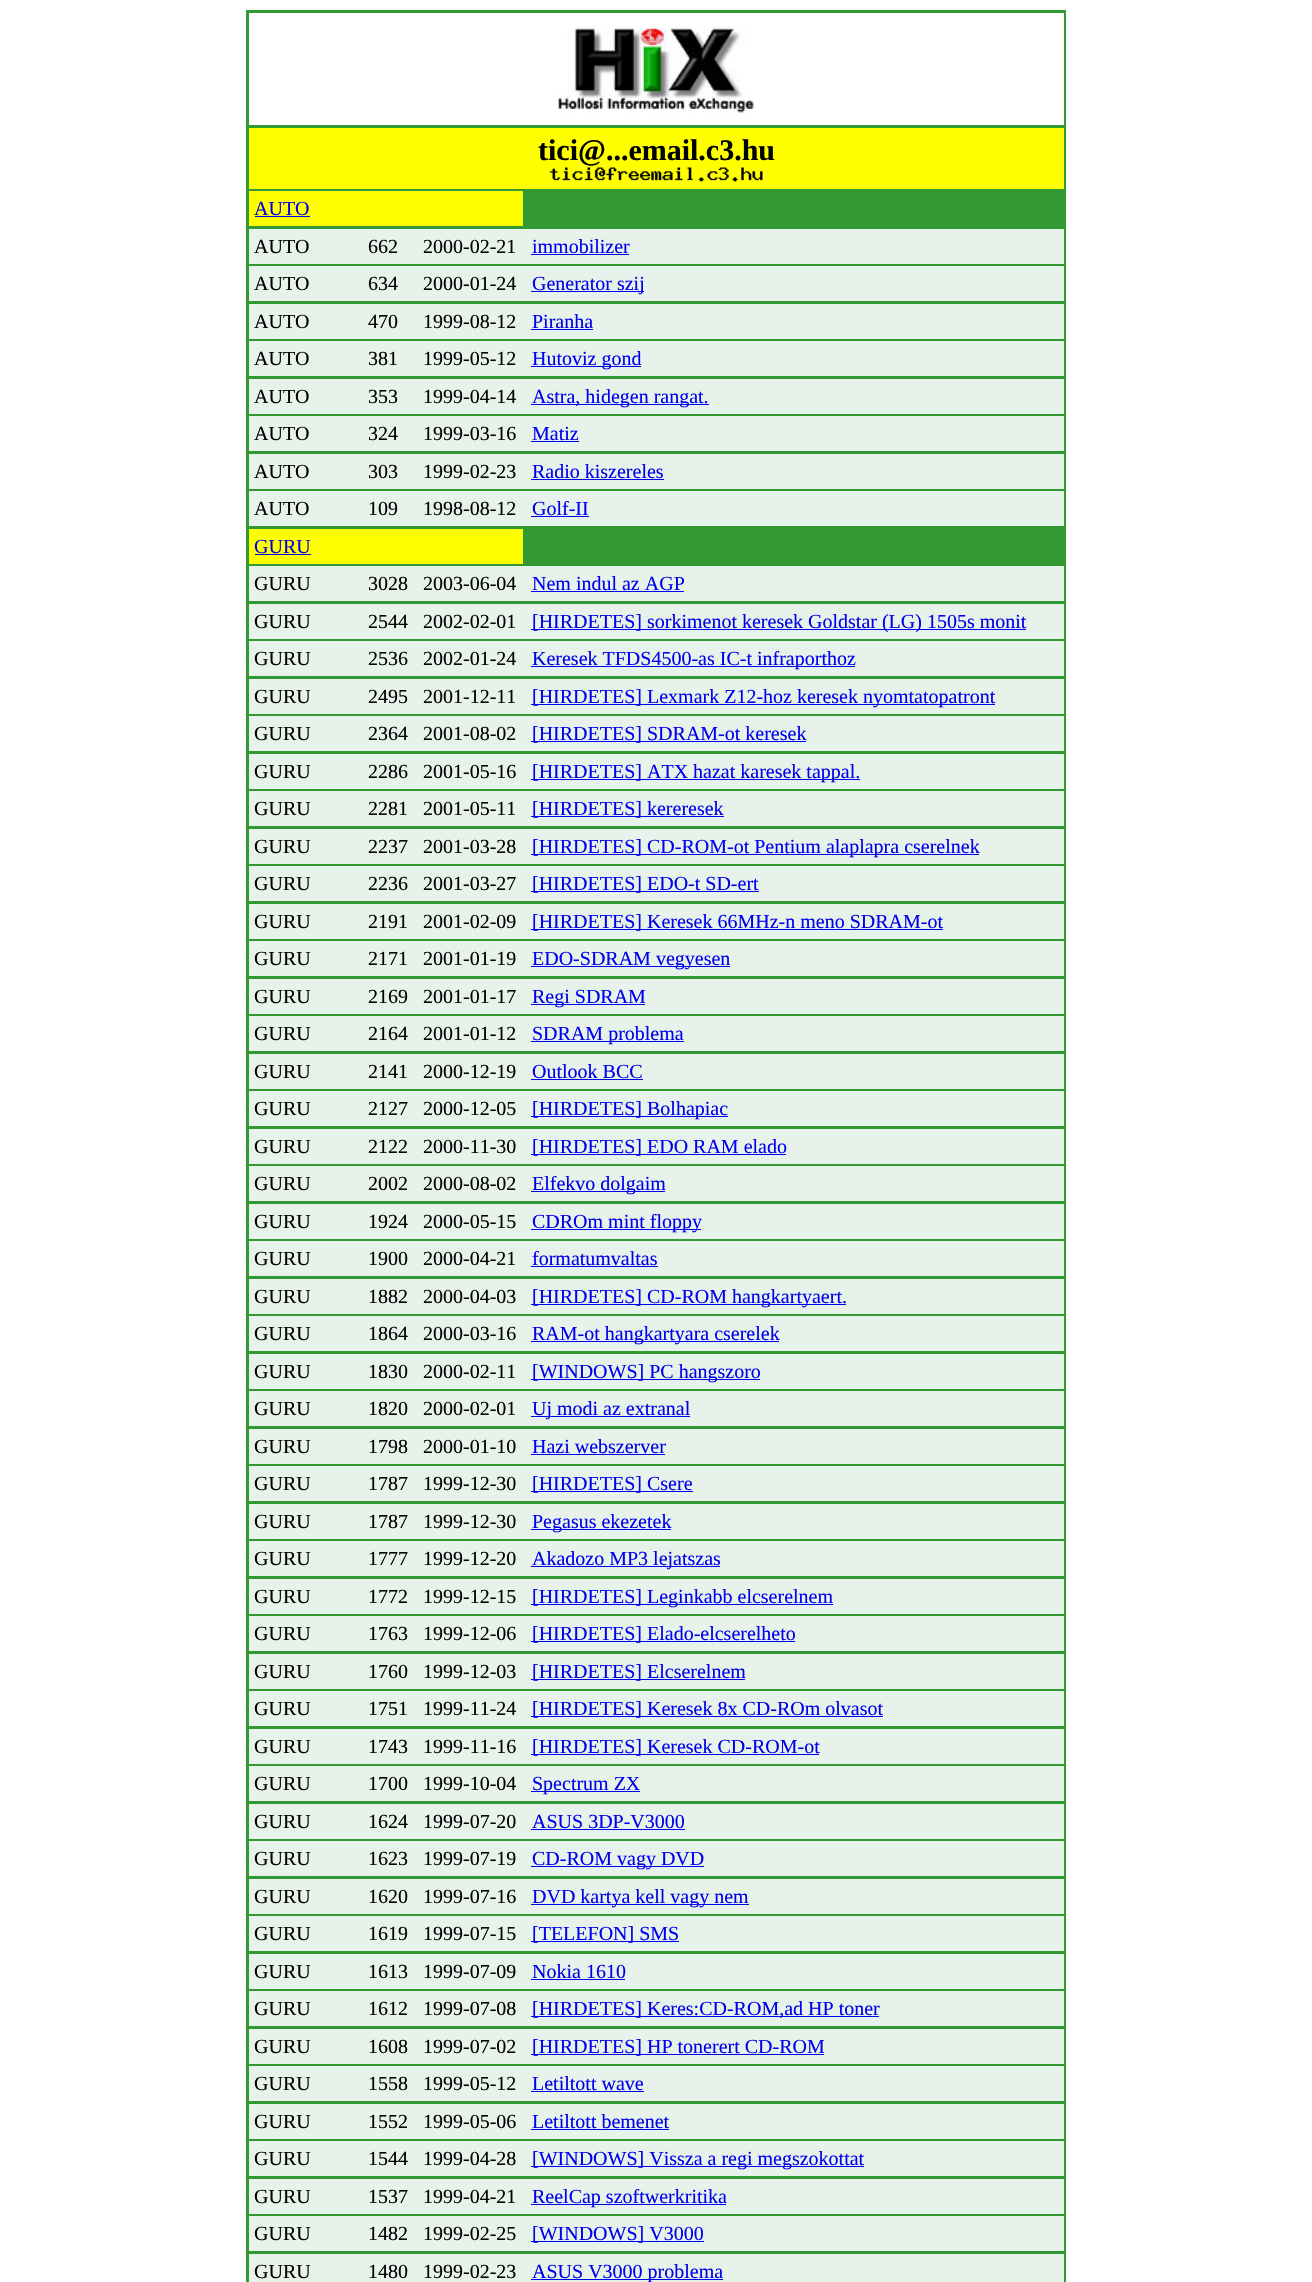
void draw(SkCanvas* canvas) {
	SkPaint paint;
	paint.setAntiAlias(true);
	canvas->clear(0xffffffff);
	paint.setColor(0xff339933);
	canvas->drawRect(SkRect::MakeXYWH(246, 10, 820, 2272), paint);
	paint.setColor(0xffffffff);
	canvas->drawRect(SkRect::MakeXYWH(249, 13, 815, 112), paint);
	canvas->drawImageRect(SkImages::DeferredFromEncodedData(SkData::MakeFromFileName("img1.png")), SkRect::MakeXYWH(557, 26, 199, 91), SkSamplingOptions());
	paint.setColor(0xffffff00);
	canvas->drawRect(SkRect::MakeXYWH(249, 128, 815, 61), paint);
	SkFont f1(fontMgr->matchFamilyStyle("Liberation Serif", SkFontStyle::Bold()), 30);
	f1.setSubpixel(true);
	paint.setColor(0xff000000);
	canvas->drawString("tici@...email.c3.hu", 538, 160, f1, paint);
	canvas->drawImageRect(SkImages::DeferredFromEncodedData(SkData::MakeFromFileName("img2.png")), SkRect::MakeXYWH(550, 167, 213, 15), SkSamplingOptions());
	paint.setColor(0xffffff00);
	canvas->drawRect(SkRect::MakeXYWH(249, 191, 274, 35), paint);
	SkFont f2(fontMgr->matchFamilyStyle("Liberation Serif", SkFontStyle::Normal()), 20);
	f2.setSubpixel(true);
	paint.setColor(0xff0000ee);
	canvas->drawString("AUTO", 254, 215, f2, paint);
	canvas->drawRect(SkRect::MakeXYWH(255, 216, 55, 1), paint);
	paint.setColor(0xffe6f2ea);
	canvas->drawRect(SkRect::MakeXYWH(249, 229, 815, 35), paint);
	paint.setColor(0xff000000);
	canvas->drawString("AUTO", 254, 253, f2, paint);
	canvas->drawString("662", 368, 253, f2, paint);
	canvas->drawString("2000-02-21", 423, 253, f2, paint);
	paint.setColor(0xff0000ee);
	canvas->drawString("immobilizer", 532, 253, f2, paint);
	canvas->drawRect(SkRect::MakeXYWH(531, 254, 98, 1), paint);
	paint.setColor(0xffe6f2ea);
	canvas->drawRect(SkRect::MakeXYWH(249, 266, 815, 35), paint);
	paint.setColor(0xff000000);
	canvas->drawString("AUTO", 254, 290, f2, paint);
	canvas->drawString("634", 368, 290, f2, paint);
	canvas->drawString("2000-01-24", 423, 290, f2, paint);
	paint.setColor(0xff0000ee);
	canvas->drawRect(SkRect::MakeXYWH(531, 291, 113, 1), paint);
	canvas->drawString("Generator szij", 532, 290, f2, paint);
	paint.setColor(0xffe6f2ea);
	canvas->drawRect(SkRect::MakeXYWH(249, 304, 815, 35), paint);
	paint.setColor(0xff000000);
	canvas->drawString("AUTO", 254, 328, f2, paint);
	canvas->drawString("470", 368, 328, f2, paint);
	canvas->drawString("1999-08-12", 423, 328, f2, paint);
	paint.setColor(0xff0000ee);
	canvas->drawString("Piranha", 532, 328, f2, paint);
	canvas->drawRect(SkRect::MakeXYWH(531, 329, 62, 1), paint);
	paint.setColor(0xffe6f2ea);
	canvas->drawRect(SkRect::MakeXYWH(249, 341, 815, 35), paint);
	paint.setColor(0xff000000);
	canvas->drawString("AUTO", 254, 365, f2, paint);
	canvas->drawString("381", 368, 365, f2, paint);
	canvas->drawString("1999-05-12", 423, 365, f2, paint);
	paint.setColor(0xff0000ee);
	canvas->drawRect(SkRect::MakeXYWH(531, 366, 110, 1), paint);
	canvas->drawString("Hutoviz gond", 532, 365, f2, paint);
	paint.setColor(0xffe6f2ea);
	canvas->drawRect(SkRect::MakeXYWH(249, 379, 815, 35), paint);
	paint.setColor(0xff000000);
	canvas->drawString("AUTO", 254, 403, f2, paint);
	canvas->drawString("353", 368, 403, f2, paint);
	canvas->drawString("1999-04-14", 423, 403, f2, paint);
	paint.setColor(0xff0000ee);
	canvas->drawRect(SkRect::MakeXYWH(531, 404, 178, 1), paint);
	canvas->drawString("Astra, hidegen rangat.", 532, 403, f2, paint);
	paint.setColor(0xffe6f2ea);
	canvas->drawRect(SkRect::MakeXYWH(249, 416, 815, 35), paint);
	paint.setColor(0xff000000);
	canvas->drawString("AUTO", 254, 440, f2, paint);
	canvas->drawString("324", 368, 440, f2, paint);
	canvas->drawString("1999-03-16", 423, 440, f2, paint);
	paint.setColor(0xff0000ee);
	canvas->drawString("Matiz", 532, 440, f2, paint);
	canvas->drawRect(SkRect::MakeXYWH(531, 441, 48, 1), paint);
	paint.setColor(0xffe6f2ea);
	canvas->drawRect(SkRect::MakeXYWH(249, 454, 815, 35), paint);
	paint.setColor(0xff000000);
	canvas->drawString("AUTO", 254, 478, f2, paint);
	canvas->drawString("303", 368, 478, f2, paint);
	canvas->drawString("1999-02-23", 423, 478, f2, paint);
	paint.setColor(0xff0000ee);
	canvas->drawString("Radio kiszereles", 532, 478, f2, paint);
	canvas->drawRect(SkRect::MakeXYWH(531, 479, 133, 1), paint);
	paint.setColor(0xffe6f2ea);
	canvas->drawRect(SkRect::MakeXYWH(249, 491, 815, 35), paint);
	paint.setColor(0xff000000);
	canvas->drawString("AUTO", 254, 515, f2, paint);
	canvas->drawString("109", 368, 515, f2, paint);
	canvas->drawString("1998-08-12", 423, 515, f2, paint);
	paint.setColor(0xff0000ee);
	canvas->drawString("Golf-II", 532, 515, f2, paint);
	canvas->drawRect(SkRect::MakeXYWH(531, 516, 58, 1), paint);
	paint.setColor(0xffffff00);
	canvas->drawRect(SkRect::MakeXYWH(249, 529, 274, 35), paint);
	paint.setColor(0xff0000ee);
	canvas->drawString("GURU", 254, 553, f2, paint);
	canvas->drawRect(SkRect::MakeXYWH(255, 554, 56, 1), paint);
	paint.setColor(0xffe6f2ea);
	canvas->drawRect(SkRect::MakeXYWH(249, 566, 815, 35), paint);
	paint.setColor(0xff000000);
	canvas->drawString("GURU", 254, 590, f2, paint);
	canvas->drawString("3028", 368, 590, f2, paint);
	canvas->drawString("2003-06-04", 423, 590, f2, paint);
	paint.setColor(0xff0000ee);
	canvas->drawString("Nem indul az AGP", 532, 590, f2, paint);
	canvas->drawRect(SkRect::MakeXYWH(531, 591, 153, 1), paint);
	paint.setColor(0xffe6f2ea);
	canvas->drawRect(SkRect::MakeXYWH(249, 604, 815, 35), paint);
	paint.setColor(0xff000000);
	canvas->drawString("GURU", 254, 628, f2, paint);
	canvas->drawString("2544", 368, 628, f2, paint);
	canvas->drawString("2002-02-01", 423, 628, f2, paint);
	paint.setColor(0xff0000ee);
	canvas->drawRect(SkRect::MakeXYWH(531, 629, 495, 1), paint);
	canvas->drawString("[HIRDETES] sorkimenot keresek Goldstar (LG) 1505s monit", 532, 628, f2, paint);
	paint.setColor(0xffe6f2ea);
	canvas->drawRect(SkRect::MakeXYWH(249, 641, 815, 35), paint);
	paint.setColor(0xff000000);
	canvas->drawString("GURU", 254, 665, f2, paint);
	canvas->drawString("2536", 368, 665, f2, paint);
	canvas->drawString("2002-01-24", 423, 665, f2, paint);
	paint.setColor(0xff0000ee);
	canvas->drawRect(SkRect::MakeXYWH(531, 666, 324, 1), paint);
	canvas->drawString("Keresek TFDS4500-as IC-t infraporthoz", 532, 665, f2, paint);
	paint.setColor(0xffe6f2ea);
	canvas->drawRect(SkRect::MakeXYWH(249, 679, 815, 35), paint);
	paint.setColor(0xff000000);
	canvas->drawString("GURU", 254, 703, f2, paint);
	canvas->drawString("2495", 368, 703, f2, paint);
	canvas->drawString("2001-12-11", 423, 703, f2, paint);
	paint.setColor(0xff0000ee);
	canvas->drawRect(SkRect::MakeXYWH(531, 704, 464, 1), paint);
	canvas->drawString("[HIRDETES] Lexmark Z12-hoz keresek nyomtatopatront", 532, 703, f2, paint);
	paint.setColor(0xffe6f2ea);
	canvas->drawRect(SkRect::MakeXYWH(249, 716, 815, 35), paint);
	paint.setColor(0xff000000);
	canvas->drawString("GURU", 254, 740, f2, paint);
	canvas->drawString("2364", 368, 740, f2, paint);
	canvas->drawString("2001-08-02", 423, 740, f2, paint);
	paint.setColor(0xff0000ee);
	canvas->drawRect(SkRect::MakeXYWH(531, 741, 275, 1), paint);
	canvas->drawString("[HIRDETES] SDRAM-ot keresek", 532, 740, f2, paint);
	paint.setColor(0xffe6f2ea);
	canvas->drawRect(SkRect::MakeXYWH(249, 754, 815, 35), paint);
	paint.setColor(0xff000000);
	canvas->drawString("GURU", 254, 778, f2, paint);
	canvas->drawString("2286", 368, 778, f2, paint);
	canvas->drawString("2001-05-16", 423, 778, f2, paint);
	paint.setColor(0xff0000ee);
	canvas->drawRect(SkRect::MakeXYWH(531, 779, 329, 1), paint);
	canvas->drawString("[HIRDETES] ATX hazat karesek tappal.", 532, 778, f2, paint);
	paint.setColor(0xffe6f2ea);
	canvas->drawRect(SkRect::MakeXYWH(249, 791, 815, 35), paint);
	paint.setColor(0xff000000);
	canvas->drawString("GURU", 254, 815, f2, paint);
	canvas->drawString("2281", 368, 815, f2, paint);
	canvas->drawString("2001-05-11", 423, 815, f2, paint);
	paint.setColor(0xff0000ee);
	canvas->drawRect(SkRect::MakeXYWH(531, 816, 193, 1), paint);
	canvas->drawString("[HIRDETES] kereresek", 532, 815, f2, paint);
	paint.setColor(0xffe6f2ea);
	canvas->drawRect(SkRect::MakeXYWH(249, 829, 815, 35), paint);
	paint.setColor(0xff000000);
	canvas->drawString("GURU", 254, 853, f2, paint);
	canvas->drawString("2237", 368, 853, f2, paint);
	canvas->drawString("2001-03-28", 423, 853, f2, paint);
	paint.setColor(0xff0000ee);
	canvas->drawRect(SkRect::MakeXYWH(531, 854, 448, 1), paint);
	canvas->drawString("[HIRDETES] CD-ROM-ot Pentium alaplapra cserelnek", 532, 853, f2, paint);
	paint.setColor(0xffe6f2ea);
	canvas->drawRect(SkRect::MakeXYWH(249, 866, 815, 35), paint);
	paint.setColor(0xff000000);
	canvas->drawString("GURU", 254, 890, f2, paint);
	canvas->drawString("2236", 368, 890, f2, paint);
	canvas->drawString("2001-03-27", 423, 890, f2, paint);
	paint.setColor(0xff0000ee);
	canvas->drawRect(SkRect::MakeXYWH(531, 891, 228, 1), paint);
	canvas->drawString("[HIRDETES] EDO-t SD-ert", 532, 890, f2, paint);
	paint.setColor(0xffe6f2ea);
	canvas->drawRect(SkRect::MakeXYWH(249, 904, 815, 35), paint);
	paint.setColor(0xff000000);
	canvas->drawString("GURU", 254, 928, f2, paint);
	canvas->drawString("2191", 368, 928, f2, paint);
	canvas->drawString("2001-02-09", 423, 928, f2, paint);
	paint.setColor(0xff0000ee);
	canvas->drawRect(SkRect::MakeXYWH(531, 929, 412, 1), paint);
	canvas->drawString("[HIRDETES] Keresek 66MHz-n meno SDRAM-ot", 532, 928, f2, paint);
	paint.setColor(0xffe6f2ea);
	canvas->drawRect(SkRect::MakeXYWH(249, 941, 815, 35), paint);
	paint.setColor(0xff000000);
	canvas->drawString("GURU", 254, 965, f2, paint);
	canvas->drawString("2171", 368, 965, f2, paint);
	canvas->drawString("2001-01-19", 423, 965, f2, paint);
	paint.setColor(0xff0000ee);
	canvas->drawRect(SkRect::MakeXYWH(531, 966, 199, 1), paint);
	canvas->drawString("EDO-SDRAM vegyesen", 532, 965, f2, paint);
	paint.setColor(0xffe6f2ea);
	canvas->drawRect(SkRect::MakeXYWH(249, 979, 815, 35), paint);
	paint.setColor(0xff000000);
	canvas->drawString("GURU", 254, 1003, f2, paint);
	canvas->drawString("2169", 368, 1003, f2, paint);
	canvas->drawString("2001-01-17", 423, 1003, f2, paint);
	paint.setColor(0xff0000ee);
	canvas->drawRect(SkRect::MakeXYWH(531, 1004, 114, 1), paint);
	canvas->drawString("Regi SDRAM", 532, 1003, f2, paint);
	paint.setColor(0xffe6f2ea);
	canvas->drawRect(SkRect::MakeXYWH(249, 1016, 815, 35), paint);
	paint.setColor(0xff000000);
	canvas->drawString("GURU", 254, 1040, f2, paint);
	canvas->drawString("2164", 368, 1040, f2, paint);
	canvas->drawString("2001-01-12", 423, 1040, f2, paint);
	paint.setColor(0xff0000ee);
	canvas->drawRect(SkRect::MakeXYWH(531, 1041, 153, 1), paint);
	canvas->drawString("SDRAM problema", 532, 1040, f2, paint);
	paint.setColor(0xffe6f2ea);
	canvas->drawRect(SkRect::MakeXYWH(249, 1054, 815, 35), paint);
	paint.setColor(0xff000000);
	canvas->drawString("GURU", 254, 1078, f2, paint);
	canvas->drawString("2141", 368, 1078, f2, paint);
	canvas->drawString("2000-12-19", 423, 1078, f2, paint);
	paint.setColor(0xff0000ee);
	canvas->drawString("Outlook BCC", 532, 1078, f2, paint);
	canvas->drawRect(SkRect::MakeXYWH(531, 1079, 112, 1), paint);
	paint.setColor(0xffe6f2ea);
	canvas->drawRect(SkRect::MakeXYWH(249, 1091, 815, 35), paint);
	paint.setColor(0xff000000);
	canvas->drawString("GURU", 254, 1115, f2, paint);
	canvas->drawString("2127", 368, 1115, f2, paint);
	canvas->drawString("2000-12-05", 423, 1115, f2, paint);
	paint.setColor(0xff0000ee);
	canvas->drawRect(SkRect::MakeXYWH(531, 1116, 197, 1), paint);
	canvas->drawString("[HIRDETES] Bolhapiac", 532, 1115, f2, paint);
	paint.setColor(0xffe6f2ea);
	canvas->drawRect(SkRect::MakeXYWH(249, 1129, 815, 35), paint);
	paint.setColor(0xff000000);
	canvas->drawString("GURU", 254, 1153, f2, paint);
	canvas->drawString("2122", 368, 1153, f2, paint);
	canvas->drawString("2000-11-30", 423, 1153, f2, paint);
	paint.setColor(0xff0000ee);
	canvas->drawRect(SkRect::MakeXYWH(531, 1154, 255, 1), paint);
	canvas->drawString("[HIRDETES] EDO RAM elado", 532, 1153, f2, paint);
	paint.setColor(0xffe6f2ea);
	canvas->drawRect(SkRect::MakeXYWH(249, 1166, 815, 35), paint);
	paint.setColor(0xff000000);
	canvas->drawString("GURU", 254, 1190, f2, paint);
	canvas->drawString("2002", 368, 1190, f2, paint);
	canvas->drawString("2000-08-02", 423, 1190, f2, paint);
	paint.setColor(0xff0000ee);
	canvas->drawRect(SkRect::MakeXYWH(531, 1191, 134, 1), paint);
	canvas->drawString("Elfekvo dolgaim", 532, 1190, f2, paint);
	paint.setColor(0xffe6f2ea);
	canvas->drawRect(SkRect::MakeXYWH(249, 1204, 815, 35), paint);
	paint.setColor(0xff000000);
	canvas->drawString("GURU", 254, 1228, f2, paint);
	canvas->drawString("1924", 368, 1228, f2, paint);
	canvas->drawString("2000-05-15", 423, 1228, f2, paint);
	paint.setColor(0xff0000ee);
	canvas->drawRect(SkRect::MakeXYWH(531, 1229, 170, 1), paint);
	canvas->drawString("CDROm mint floppy", 532, 1228, f2, paint);
	paint.setColor(0xffe6f2ea);
	canvas->drawRect(SkRect::MakeXYWH(249, 1241, 815, 35), paint);
	paint.setColor(0xff000000);
	canvas->drawString("GURU", 254, 1265, f2, paint);
	canvas->drawString("1900", 368, 1265, f2, paint);
	canvas->drawString("2000-04-21", 423, 1265, f2, paint);
	paint.setColor(0xff0000ee);
	canvas->drawString("formatumvaltas", 532, 1265, f2, paint);
	canvas->drawRect(SkRect::MakeXYWH(531, 1266, 127, 1), paint);
	paint.setColor(0xffe6f2ea);
	canvas->drawRect(SkRect::MakeXYWH(249, 1279, 815, 35), paint);
	paint.setColor(0xff000000);
	canvas->drawString("GURU", 254, 1303, f2, paint);
	canvas->drawString("1882", 368, 1303, f2, paint);
	canvas->drawString("2000-04-03", 423, 1303, f2, paint);
	paint.setColor(0xff0000ee);
	canvas->drawRect(SkRect::MakeXYWH(531, 1304, 315, 1), paint);
	canvas->drawString("[HIRDETES] CD-ROM hangkartyaert.", 532, 1303, f2, paint);
	paint.setColor(0xffe6f2ea);
	canvas->drawRect(SkRect::MakeXYWH(249, 1316, 815, 35), paint);
	paint.setColor(0xff000000);
	canvas->drawString("GURU", 254, 1340, f2, paint);
	canvas->drawString("1864", 368, 1340, f2, paint);
	canvas->drawString("2000-03-16", 423, 1340, f2, paint);
	paint.setColor(0xff0000ee);
	canvas->drawRect(SkRect::MakeXYWH(531, 1341, 248, 1), paint);
	canvas->drawString("RAM-ot hangkartyara cserelek", 532, 1340, f2, paint);
	paint.setColor(0xffe6f2ea);
	canvas->drawRect(SkRect::MakeXYWH(249, 1354, 815, 35), paint);
	paint.setColor(0xff000000);
	canvas->drawString("GURU", 254, 1378, f2, paint);
	canvas->drawString("1830", 368, 1378, f2, paint);
	canvas->drawString("2000-02-11", 423, 1378, f2, paint);
	paint.setColor(0xff0000ee);
	canvas->drawRect(SkRect::MakeXYWH(531, 1379, 229, 1), paint);
	canvas->drawString("[WINDOWS] PC hangszoro", 532, 1378, f2, paint);
	paint.setColor(0xffe6f2ea);
	canvas->drawRect(SkRect::MakeXYWH(249, 1391, 815, 35), paint);
	paint.setColor(0xff000000);
	canvas->drawString("GURU", 254, 1415, f2, paint);
	canvas->drawString("1820", 368, 1415, f2, paint);
	canvas->drawString("2000-02-01", 423, 1415, f2, paint);
	paint.setColor(0xff0000ee);
	canvas->drawRect(SkRect::MakeXYWH(531, 1416, 159, 1), paint);
	canvas->drawString("Uj modi az extranal", 532, 1415, f2, paint);
	paint.setColor(0xffe6f2ea);
	canvas->drawRect(SkRect::MakeXYWH(249, 1429, 815, 35), paint);
	paint.setColor(0xff000000);
	canvas->drawString("GURU", 254, 1453, f2, paint);
	canvas->drawString("1798", 368, 1453, f2, paint);
	canvas->drawString("2000-01-10", 423, 1453, f2, paint);
	paint.setColor(0xff0000ee);
	canvas->drawString("Hazi webszerver", 532, 1453, f2, paint);
	canvas->drawRect(SkRect::MakeXYWH(531, 1454, 134, 1), paint);
	paint.setColor(0xffe6f2ea);
	canvas->drawRect(SkRect::MakeXYWH(249, 1466, 815, 35), paint);
	paint.setColor(0xff000000);
	canvas->drawString("GURU", 254, 1490, f2, paint);
	canvas->drawString("1787", 368, 1490, f2, paint);
	canvas->drawString("1999-12-30", 423, 1490, f2, paint);
	paint.setColor(0xff0000ee);
	canvas->drawRect(SkRect::MakeXYWH(531, 1491, 162, 1), paint);
	canvas->drawString("[HIRDETES] Csere", 532, 1490, f2, paint);
	paint.setColor(0xffe6f2ea);
	canvas->drawRect(SkRect::MakeXYWH(249, 1504, 815, 35), paint);
	paint.setColor(0xff000000);
	canvas->drawString("GURU", 254, 1528, f2, paint);
	canvas->drawString("1787", 368, 1528, f2, paint);
	canvas->drawString("1999-12-30", 423, 1528, f2, paint);
	paint.setColor(0xff0000ee);
	canvas->drawRect(SkRect::MakeXYWH(531, 1529, 140, 1), paint);
	canvas->drawString("Pegasus ekezetek", 532, 1528, f2, paint);
	paint.setColor(0xffe6f2ea);
	canvas->drawRect(SkRect::MakeXYWH(249, 1541, 815, 35), paint);
	paint.setColor(0xff000000);
	canvas->drawString("GURU", 254, 1565, f2, paint);
	canvas->drawString("1777", 368, 1565, f2, paint);
	canvas->drawString("1999-12-20", 423, 1565, f2, paint);
	paint.setColor(0xff0000ee);
	canvas->drawRect(SkRect::MakeXYWH(531, 1566, 189, 1), paint);
	canvas->drawString("Akadozo MP3 lejatszas", 532, 1565, f2, paint);
	paint.setColor(0xffe6f2ea);
	canvas->drawRect(SkRect::MakeXYWH(249, 1579, 815, 35), paint);
	paint.setColor(0xff000000);
	canvas->drawString("GURU", 254, 1603, f2, paint);
	canvas->drawString("1772", 368, 1603, f2, paint);
	canvas->drawString("1999-12-15", 423, 1603, f2, paint);
	paint.setColor(0xff0000ee);
	canvas->drawRect(SkRect::MakeXYWH(531, 1604, 302, 1), paint);
	canvas->drawString("[HIRDETES] Leginkabb elcserelnem", 532, 1603, f2, paint);
	paint.setColor(0xffe6f2ea);
	canvas->drawRect(SkRect::MakeXYWH(249, 1616, 815, 35), paint);
	paint.setColor(0xff000000);
	canvas->drawString("GURU", 254, 1640, f2, paint);
	canvas->drawString("1763", 368, 1640, f2, paint);
	canvas->drawString("1999-12-06", 423, 1640, f2, paint);
	paint.setColor(0xff0000ee);
	canvas->drawRect(SkRect::MakeXYWH(531, 1641, 264, 1), paint);
	canvas->drawString("[HIRDETES] Elado-elcserelheto", 532, 1640, f2, paint);
	paint.setColor(0xffe6f2ea);
	canvas->drawRect(SkRect::MakeXYWH(249, 1654, 815, 35), paint);
	paint.setColor(0xff000000);
	canvas->drawString("GURU", 254, 1678, f2, paint);
	canvas->drawString("1760", 368, 1678, f2, paint);
	canvas->drawString("1999-12-03", 423, 1678, f2, paint);
	paint.setColor(0xff0000ee);
	canvas->drawRect(SkRect::MakeXYWH(531, 1679, 214, 1), paint);
	canvas->drawString("[HIRDETES] Elcserelnem", 532, 1678, f2, paint);
	paint.setColor(0xffe6f2ea);
	canvas->drawRect(SkRect::MakeXYWH(249, 1691, 815, 35), paint);
	paint.setColor(0xff000000);
	canvas->drawString("GURU", 254, 1715, f2, paint);
	canvas->drawString("1751", 368, 1715, f2, paint);
	canvas->drawString("1999-11-24", 423, 1715, f2, paint);
	paint.setColor(0xff0000ee);
	canvas->drawRect(SkRect::MakeXYWH(531, 1716, 352, 1), paint);
	canvas->drawString("[HIRDETES] Keresek 8x CD-ROm olvasot", 532, 1715, f2, paint);
	paint.setColor(0xffe6f2ea);
	canvas->drawRect(SkRect::MakeXYWH(249, 1729, 815, 35), paint);
	paint.setColor(0xff000000);
	canvas->drawString("GURU", 254, 1753, f2, paint);
	canvas->drawString("1743", 368, 1753, f2, paint);
	canvas->drawString("1999-11-16", 423, 1753, f2, paint);
	paint.setColor(0xff0000ee);
	canvas->drawRect(SkRect::MakeXYWH(531, 1754, 288, 1), paint);
	canvas->drawString("[HIRDETES] Keresek CD-ROM-ot", 532, 1753, f2, paint);
	paint.setColor(0xffe6f2ea);
	canvas->drawRect(SkRect::MakeXYWH(249, 1766, 815, 35), paint);
	paint.setColor(0xff000000);
	canvas->drawString("GURU", 254, 1790, f2, paint);
	canvas->drawString("1700", 368, 1790, f2, paint);
	canvas->drawString("1999-10-04", 423, 1790, f2, paint);
	paint.setColor(0xff0000ee);
	canvas->drawRect(SkRect::MakeXYWH(531, 1791, 109, 1), paint);
	canvas->drawString("Spectrum ZX", 532, 1790, f2, paint);
	paint.setColor(0xffe6f2ea);
	canvas->drawRect(SkRect::MakeXYWH(249, 1804, 815, 35), paint);
	paint.setColor(0xff000000);
	canvas->drawString("GURU", 254, 1828, f2, paint);
	canvas->drawString("1624", 368, 1828, f2, paint);
	canvas->drawString("1999-07-20", 423, 1828, f2, paint);
	paint.setColor(0xff0000ee);
	canvas->drawString("ASUS 3DP-V3000", 532, 1828, f2, paint);
	canvas->drawRect(SkRect::MakeXYWH(531, 1829, 154, 1), paint);
	paint.setColor(0xffe6f2ea);
	canvas->drawRect(SkRect::MakeXYWH(249, 1841, 815, 35), paint);
	paint.setColor(0xff000000);
	canvas->drawString("GURU", 254, 1865, f2, paint);
	canvas->drawString("1623", 368, 1865, f2, paint);
	canvas->drawString("1999-07-19", 423, 1865, f2, paint);
	paint.setColor(0xff0000ee);
	canvas->drawRect(SkRect::MakeXYWH(531, 1866, 173, 1), paint);
	canvas->drawString("CD-ROM vagy DVD", 532, 1865, f2, paint);
	paint.setColor(0xffe6f2ea);
	canvas->drawRect(SkRect::MakeXYWH(249, 1879, 815, 35), paint);
	paint.setColor(0xff000000);
	canvas->drawString("GURU", 254, 1903, f2, paint);
	canvas->drawString("1620", 368, 1903, f2, paint);
	canvas->drawString("1999-07-16", 423, 1903, f2, paint);
	paint.setColor(0xff0000ee);
	canvas->drawRect(SkRect::MakeXYWH(531, 1904, 218, 1), paint);
	canvas->drawString("DVD kartya kell vagy nem", 532, 1903, f2, paint);
	paint.setColor(0xffe6f2ea);
	canvas->drawRect(SkRect::MakeXYWH(249, 1916, 815, 35), paint);
	paint.setColor(0xff000000);
	canvas->drawString("GURU", 254, 1940, f2, paint);
	canvas->drawString("1619", 368, 1940, f2, paint);
	canvas->drawString("1999-07-15", 423, 1940, f2, paint);
	paint.setColor(0xff0000ee);
	canvas->drawRect(SkRect::MakeXYWH(531, 1941, 148, 1), paint);
	canvas->drawString("[TELEFON] SMS", 532, 1940, f2, paint);
	paint.setColor(0xffe6f2ea);
	canvas->drawRect(SkRect::MakeXYWH(249, 1954, 815, 35), paint);
	paint.setColor(0xff000000);
	canvas->drawString("GURU", 254, 1978, f2, paint);
	canvas->drawString("1613", 368, 1978, f2, paint);
	canvas->drawString("1999-07-09", 423, 1978, f2, paint);
	paint.setColor(0xff0000ee);
	canvas->drawString("Nokia 1610", 532, 1978, f2, paint);
	canvas->drawRect(SkRect::MakeXYWH(531, 1979, 94, 1), paint);
	paint.setColor(0xffe6f2ea);
	canvas->drawRect(SkRect::MakeXYWH(249, 1991, 815, 35), paint);
	paint.setColor(0xff000000);
	canvas->drawString("GURU", 254, 2015, f2, paint);
	canvas->drawString("1612", 368, 2015, f2, paint);
	canvas->drawString("1999-07-08", 423, 2015, f2, paint);
	paint.setColor(0xff0000ee);
	canvas->drawRect(SkRect::MakeXYWH(531, 2016, 348, 1), paint);
	canvas->drawString("[HIRDETES] Keres:CD-ROM,ad HP toner", 532, 2015, f2, paint);
	paint.setColor(0xffe6f2ea);
	canvas->drawRect(SkRect::MakeXYWH(249, 2029, 815, 35), paint);
	paint.setColor(0xff000000);
	canvas->drawString("GURU", 254, 2053, f2, paint);
	canvas->drawString("1608", 368, 2053, f2, paint);
	canvas->drawString("1999-07-02", 423, 2053, f2, paint);
	paint.setColor(0xff0000ee);
	canvas->drawRect(SkRect::MakeXYWH(531, 2054, 293, 1), paint);
	canvas->drawString("[HIRDETES] HP tonerert CD-ROM", 532, 2053, f2, paint);
	paint.setColor(0xffe6f2ea);
	canvas->drawRect(SkRect::MakeXYWH(249, 2066, 815, 35), paint);
	paint.setColor(0xff000000);
	canvas->drawString("GURU", 254, 2090, f2, paint);
	canvas->drawString("1558", 368, 2090, f2, paint);
	canvas->drawString("1999-05-12", 423, 2090, f2, paint);
	paint.setColor(0xff0000ee);
	canvas->drawString("Letiltott wave", 532, 2090, f2, paint);
	canvas->drawRect(SkRect::MakeXYWH(531, 2091, 113, 1), paint);
	paint.setColor(0xffe6f2ea);
	canvas->drawRect(SkRect::MakeXYWH(249, 2104, 815, 35), paint);
	paint.setColor(0xff000000);
	canvas->drawString("GURU", 254, 2128, f2, paint);
	canvas->drawString("1552", 368, 2128, f2, paint);
	canvas->drawString("1999-05-06", 423, 2128, f2, paint);
	paint.setColor(0xff0000ee);
	canvas->drawString("Letiltott bemenet", 532, 2128, f2, paint);
	canvas->drawRect(SkRect::MakeXYWH(531, 2129, 138, 1), paint);
	paint.setColor(0xffe6f2ea);
	canvas->drawRect(SkRect::MakeXYWH(249, 2141, 815, 35), paint);
	paint.setColor(0xff000000);
	canvas->drawString("GURU", 254, 2165, f2, paint);
	canvas->drawString("1544", 368, 2165, f2, paint);
	canvas->drawString("1999-04-28", 423, 2165, f2, paint);
	paint.setColor(0xff0000ee);
	canvas->drawRect(SkRect::MakeXYWH(531, 2166, 333, 1), paint);
	canvas->drawString("[WINDOWS] Vissza a regi megszokottat", 532, 2165, f2, paint);
	paint.setColor(0xffe6f2ea);
	canvas->drawRect(SkRect::MakeXYWH(249, 2179, 815, 35), paint);
	paint.setColor(0xff000000);
	canvas->drawString("GURU", 254, 2203, f2, paint);
	canvas->drawString("1537", 368, 2203, f2, paint);
	canvas->drawString("1999-04-21", 423, 2203, f2, paint);
	paint.setColor(0xff0000ee);
	canvas->drawRect(SkRect::MakeXYWH(531, 2204, 195, 1), paint);
	canvas->drawString("ReelCap szoftwerkritika", 532, 2203, f2, paint);
	paint.setColor(0xffe6f2ea);
	canvas->drawRect(SkRect::MakeXYWH(249, 2216, 815, 35), paint);
	paint.setColor(0xff000000);
	canvas->drawString("GURU", 254, 2240, f2, paint);
	canvas->drawString("1482", 368, 2240, f2, paint);
	canvas->drawString("1999-02-25", 423, 2240, f2, paint);
	paint.setColor(0xff0000ee);
	canvas->drawRect(SkRect::MakeXYWH(531, 2241, 173, 1), paint);
	canvas->drawString("[WINDOWS] V3000", 532, 2240, f2, paint);
	paint.setColor(0xffe6f2ea);
	canvas->drawRect(SkRect::MakeXYWH(249, 2254, 815, 28), paint);
	paint.setColor(0xff000000);
	canvas->drawString("GURU", 254, 2278, f2, paint);
	canvas->drawString("1480", 368, 2278, f2, paint);
	canvas->drawString("1999-02-23", 423, 2278, f2, paint);
	paint.setColor(0xff0000ee);
	canvas->drawRect(SkRect::MakeXYWH(531, 2279, 192, 1), paint);
	canvas->drawString("ASUS V3000 problema", 532, 2278, f2, paint);
}
